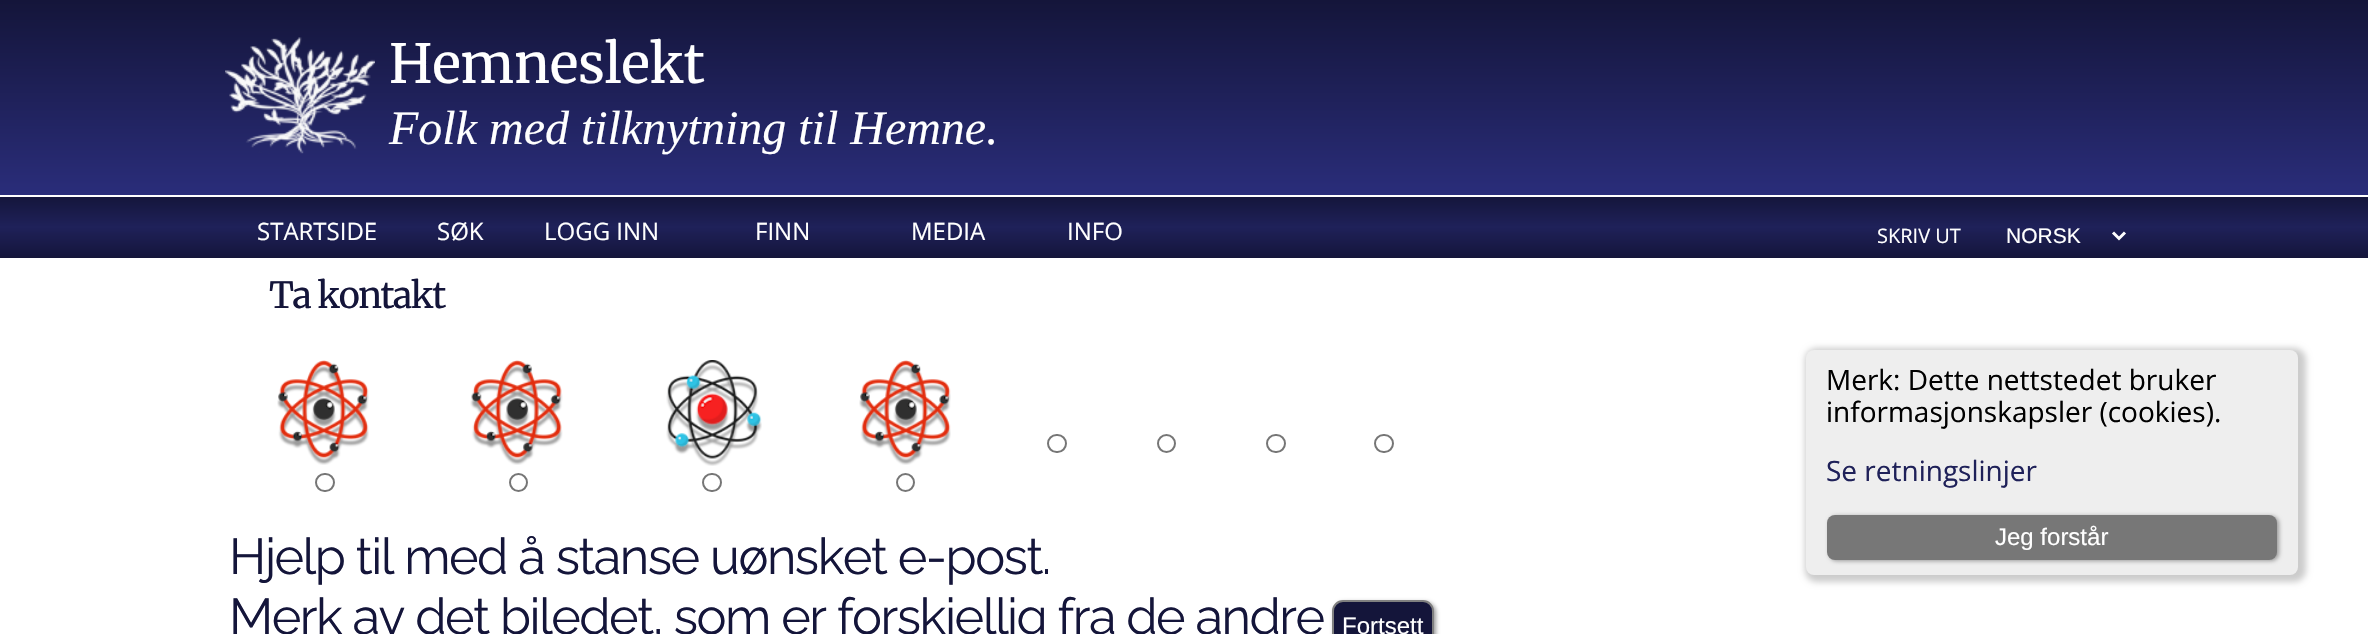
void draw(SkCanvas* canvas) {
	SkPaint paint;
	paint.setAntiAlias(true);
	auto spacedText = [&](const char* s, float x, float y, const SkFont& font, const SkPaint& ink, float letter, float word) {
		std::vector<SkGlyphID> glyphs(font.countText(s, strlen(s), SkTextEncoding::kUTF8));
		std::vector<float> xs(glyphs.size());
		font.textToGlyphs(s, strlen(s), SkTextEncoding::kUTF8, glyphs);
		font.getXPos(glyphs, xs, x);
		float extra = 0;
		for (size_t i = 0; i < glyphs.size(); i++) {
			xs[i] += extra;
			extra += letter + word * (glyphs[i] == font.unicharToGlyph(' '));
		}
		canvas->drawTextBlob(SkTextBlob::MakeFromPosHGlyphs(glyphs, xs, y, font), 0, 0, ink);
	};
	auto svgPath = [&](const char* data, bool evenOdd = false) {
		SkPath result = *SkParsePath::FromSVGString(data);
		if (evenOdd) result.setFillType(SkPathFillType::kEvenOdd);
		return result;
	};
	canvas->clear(0xffffffff);
	{
		const SkColor colors[] = {0xff14153a, 0xff2a2d7a};
		const float stops[] = {0, 1};
		const SkPoint ends[] = {{1184, 0}, {1184, 195}};
		paint.setShader(SkGradientShader::MakeLinear(ends, colors, stops, 2, SkTileMode::kClamp));
		paint.setAlpha(255);
	}
	canvas->drawRect(SkRect::MakeXYWH(0, 0, 2368, 195), paint);
	canvas->drawImageRect(SkImages::DeferredFromEncodedData(SkData::MakeFromFileName("img1.png")), SkRect::MakeXYWH(225, 37, 150, 117), SkSamplingOptions());
	SkFont f1(fontMgr->matchFamilyStyle("Merriweather", SkFontStyle::Normal()), 54);
	f1.setSubpixel(true);
	paint.setShader(nullptr);
	paint.setColor(0xffffffff);
	canvas->drawString("Hemneslekt", 389, 83, f1, paint);
	SkFont f2(fontMgr->matchFamilyStyle("Liberation Serif", SkFontStyle::Italic()), 48);
	f2.setSubpixel(true);
	canvas->drawString("Folk med tilknytning til Hemne.", 389, 144, f2, paint);
	{
		const SkColor colors[] = {0xff14153a, 0xff1f2159, 0xff14153a};
		const float stops[] = {0, 0.5, 1};
		const SkPoint ends[] = {{1184, 196}, {1184, 258}};
		paint.setShader(SkGradientShader::MakeLinear(ends, colors, stops, 3, SkTileMode::kClamp));
		paint.setAlpha(255);
	}
	canvas->drawRect(SkRect::MakeXYWH(0, 197, 2368, 61), paint);
	SkFont f3(fontMgr->matchFamilyStyle("Open Sans", SkFontStyle::Normal()), 24);
	f3.setSubpixel(true);
	paint.setShader(nullptr);
	paint.setColor(0xffffffff);
	canvas->drawString("STARTSIDE", 257, 240, f3, paint);
	canvas->drawString("SØK", 437, 240, f3, paint);
	canvas->drawString("LOGG INN", 544, 240, f3, paint);
	canvas->drawString("FINN", 755, 240, f3, paint);
	canvas->drawString("MEDIA", 911, 240, f3, paint);
	canvas->drawString("INFO", 1067, 240, f3, paint);
	SkFont f4(fontMgr->matchFamilyStyle("Open Sans", SkFontStyle::Normal()), 20);
	f4.setSubpixel(true);
	canvas->drawString("SKRIV UT", 1877, 243, f4, paint);
	paint.setStroke(true);
	paint.setStrokeWidth(3);
	canvas->drawPath(svgPath("M2113 232.5L2119 238.5L2125 232.5"), paint);
	SkFont f5(fontMgr->matchFamilyStyle("Liberation Sans", SkFontStyle::Normal()), 21);
	f5.setSubpixel(true);
	paint.setStroke(false);
	canvas->drawString("NORSK", 2006, 243, f5, paint);
	SkFont f6(fontMgr->matchFamilyStyle("Merriweather", SkFontStyle::Normal()), 36);
	f6.setSubpixel(true);
	paint.setColor(0xff14153a);
	spacedText("Ta kontakt", 269, 308, f6, paint, -1.5, 0);
	paint.setColor(0x33000000);
	paint.setMaskFilter(SkMaskFilter::MakeBlur(kNormal_SkBlurStyle, 3));
	canvas->drawRoundRect(SkRect::MakeXYWH(1805, 348, 501, 234), 12, 12, paint);
	paint.setMaskFilter(nullptr);
	paint.setColor(0xffeeeeee);
	canvas->drawRoundRect(SkRect::MakeXYWH(1806, 350, 492, 225), 8, 8, paint);
	SkFont f7(fontMgr->matchFamilyStyle("Open Sans", SkFontStyle::Normal()), 28);
	f7.setSubpixel(true);
	paint.setColor(0xff000000);
	canvas->drawString("Merk: Dette nettstedet bruker", 1826, 390, f7, paint);
	canvas->drawString("informasjonskapsler (cookies).", 1826, 422, f7, paint);
	paint.setColor(0xff1f2159);
	canvas->drawString("Se retningslinjer", 1826, 481, f7, paint);
	paint.setColor(0xff999999);
	paint.setMaskFilter(SkMaskFilter::MakeBlur(kNormal_SkBlurStyle, 2));
	canvas->drawRoundRect(SkRect::MakeXYWH(1829, 516, 450, 45), 8, 8, paint);
	paint.setMaskFilter(nullptr);
	paint.setColor(0xff777777);
	canvas->drawRoundRect(SkRect::MakeXYWH(1827, 515, 450, 45), 8, 8, paint);
	SkFont f8(fontMgr->matchFamilyStyle("Liberation Sans", SkFontStyle::Normal()), 24);
	f8.setSubpixel(true);
	paint.setColor(0xffffffff);
	canvas->drawString("Jeg forstår", 1995, 545, f8, paint);
	canvas->drawImageRect(SkImages::DeferredFromEncodedData(SkData::MakeFromFileName("img2.png")), SkRect::MakeXYWH(277, 360, 92, 105), SkSamplingOptions());
	paint.setStroke(true);
	paint.setStrokeWidth(2);
	paint.setColor(0xff767676);
	canvas->drawRoundRect(SkRect::MakeXYWH(316, 474, 18, 17), 8.5, 8.5, paint);
	canvas->drawImageRect(SkImages::DeferredFromEncodedData(SkData::MakeFromFileName("img3.png")), SkRect::MakeXYWH(470, 360, 93, 105), SkSamplingOptions());
	canvas->drawCircle(518.5, 482.5, 8.5, paint);
	canvas->drawImageRect(SkImages::DeferredFromEncodedData(SkData::MakeFromFileName("img4.png")), SkRect::MakeXYWH(666, 360, 96, 106), SkSamplingOptions());
	canvas->drawRoundRect(SkRect::MakeXYWH(703, 474, 18, 17), 8.5, 8.5, paint);
	canvas->drawImageRect(SkImages::DeferredFromEncodedData(SkData::MakeFromFileName("img2.png")), SkRect::MakeXYWH(859, 360, 92, 105), SkSamplingOptions());
	canvas->drawCircle(905.5, 482.5, 8.5, paint);
	canvas->drawRoundRect(SkRect::MakeXYWH(1048, 435, 18, 17), 8.5, 8.5, paint);
	canvas->drawCircle(1166.5, 443.5, 8.5, paint);
	canvas->drawRoundRect(SkRect::MakeXYWH(1267, 435, 18, 17), 8.5, 8.5, paint);
	canvas->drawRoundRect(SkRect::MakeXYWH(1375, 435, 18, 17), 8.5, 8.5, paint);
	SkFont f9(fontMgr->matchFamilyStyle("Raleway", SkFontStyle::Normal()), 50.4);
	f9.setSubpixel(true);
	paint.setStroke(false);
	paint.setColor(0xff14153a);
	spacedText("Hjelp til med å stanse uønsket e-post.", 229, 574, f9, paint, -1.5, 0);
	spacedText("Merk av det biledet, som er forskjellig fra de andre", 229, 634, f9, paint, -1.5, 0);
	paint.setColor(0xff999999);
	paint.setMaskFilter(SkMaskFilter::MakeBlur(kNormal_SkBlurStyle, 2));
	canvas->drawRoundRect(SkRect::MakeXYWH(1334, 602, 102, 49), 11, 11, paint);
	paint.setMaskFilter(nullptr);
	paint.setColor(0xff14153a);
	canvas->drawRoundRect(SkRect::MakeXYWH(1333, 601, 100, 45), 10, 10, paint);
	paint.setStroke(true);
	paint.setColor(0xff808080);
	canvas->drawRoundRect(SkRect::MakeXYWH(1333, 601, 100, 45), 10, 10, paint);
	paint.setStroke(false);
	paint.setColor(0xffffffff);
	canvas->drawString("Fortsett", 1342, 634, f8, paint);
}
